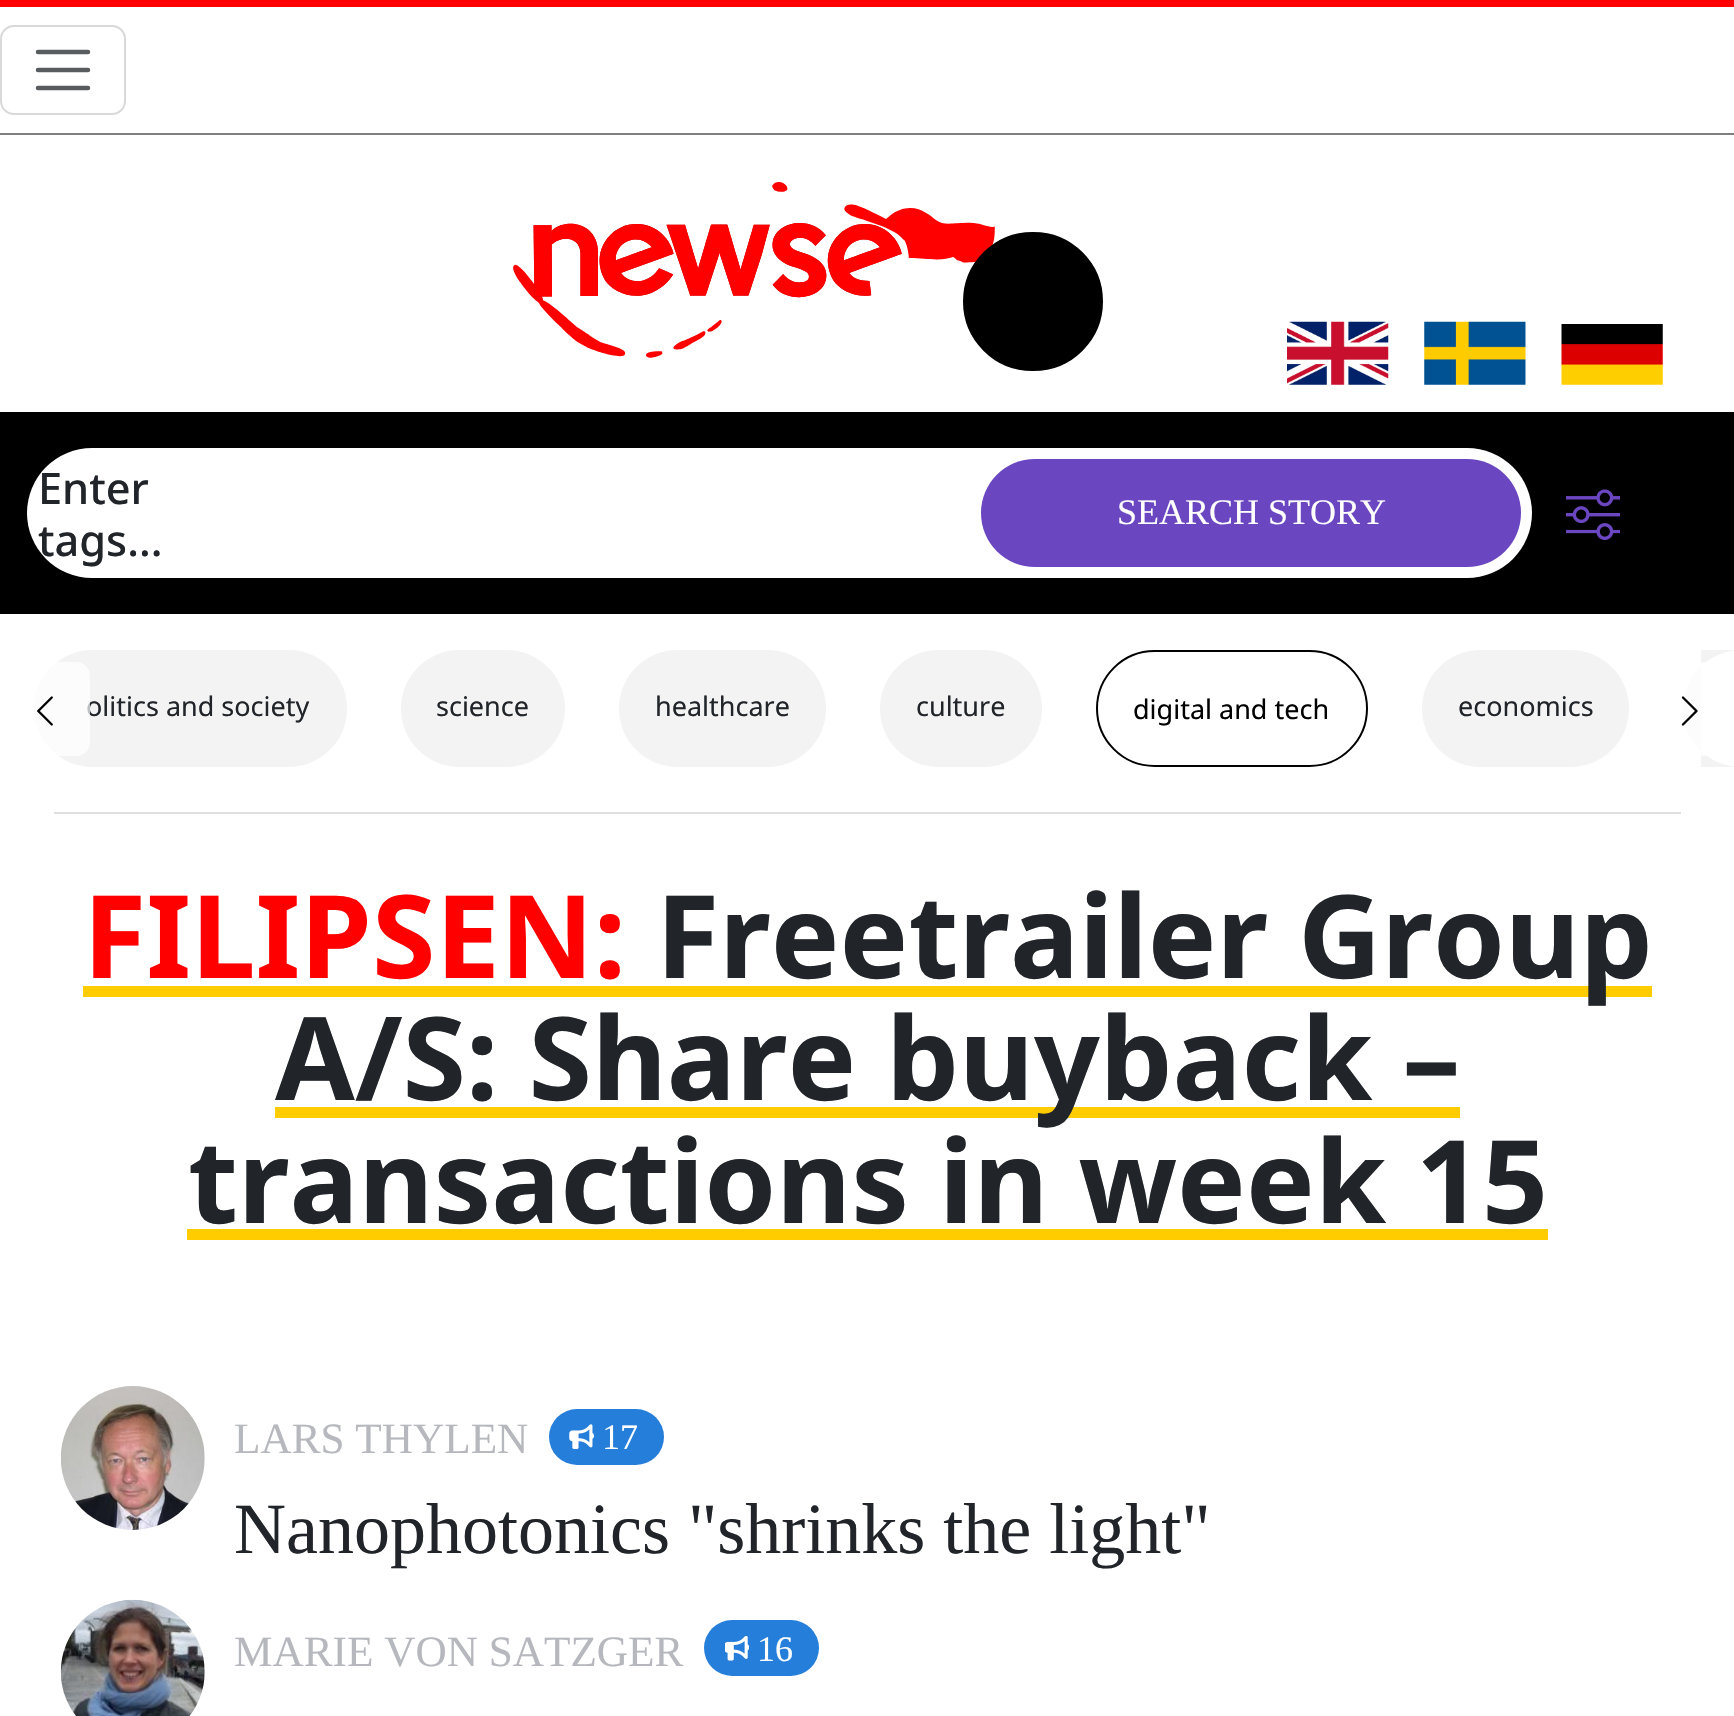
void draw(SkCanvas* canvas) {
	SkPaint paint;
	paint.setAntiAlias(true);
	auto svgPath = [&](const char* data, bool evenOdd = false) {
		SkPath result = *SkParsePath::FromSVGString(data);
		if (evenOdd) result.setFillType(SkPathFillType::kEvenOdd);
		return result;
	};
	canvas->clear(0xffffffff);
	paint.setColor(0xffff0000);
	canvas->drawRect(SkRect::MakeXYWH(0, 0, 1734, 7), paint);
	paint.setColor(0xff808080);
	canvas->drawRect(SkRect::MakeXYWH(0, 133, 1734, 2), paint);
	paint.setStroke(true);
	paint.setStrokeWidth(2);
	paint.setColor(0xffd9d9d9);
	canvas->drawRoundRect(SkRect::MakeXYWH(1, 26, 124, 88), 13, 13, paint);
	paint.setStrokeWidth(4.5);
	paint.setStrokeCap(SkPaint::kRound_Cap);
	paint.setColor(0xff595c5f);
	canvas->drawPath(svgPath("M38 52H88M38 70H88M38 88H88"), paint);
	canvas->drawImageRect(SkImages::DeferredFromEncodedData(SkData::MakeFromFileName("img1.png")), SkRect::MakeXYWH(513, 182, 482, 176), SkSamplingOptions());
	paint.setStrokeWidth(9);
	paint.setStrokeCap(SkPaint::kButt_Cap);
	paint.setColor(0xff000000);
	canvas->drawRoundRect(SkRect::MakeXYWH(967.5, 236.5, 131, 130), 65, 65, paint);
	paint.setStroke(false);
	canvas->drawRoundRect(SkRect::MakeXYWH(968, 236, 130, 131), 65, 65, paint);
	canvas->drawRect(SkRect::MakeXYWH(0, 412, 1734, 202), paint);
	canvas->drawImageRect(SkImages::DeferredFromEncodedData(SkData::MakeFromFileName("img2.png")), SkRect::MakeXYWH(1287, 321, 102, 64), SkSamplingOptions());
	canvas->drawImageRect(SkImages::DeferredFromEncodedData(SkData::MakeFromFileName("img3.png")), SkRect::MakeXYWH(1424, 321, 102, 64), SkSamplingOptions());
	canvas->drawImageRect(SkImages::DeferredFromEncodedData(SkData::MakeFromFileName("img4.png")), SkRect::MakeXYWH(1561, 324, 102, 61), SkSamplingOptions());
	paint.setColor(0xffffffff);
	canvas->drawRoundRect(SkRect::MakeXYWH(27, 448, 1505, 130), 65, 65, paint);
	SkFont f1(fontMgr->matchFamilyStyle("Noto Sans", SkFontStyle(500, SkFontStyle::kNormal_Width, SkFontStyle::kUpright_Slant)), 43.25);
	f1.setSubpixel(true);
	paint.setColor(0xff212529);
	canvas->drawString("Enter", 38, 504, f1, paint);
	canvas->drawString("tags...", 38, 556, f1, paint);
	paint.setColor(0xff6b46c1);
	canvas->drawRoundRect(SkRect::MakeXYWH(981, 459, 540, 108), 54, 54, paint);
	SkFont f2(fontMgr->matchFamilyStyle("Liberation Serif", SkFontStyle::Normal()), 36);
	f2.setSubpixel(true);
	paint.setColor(0xffffffff);
	canvas->drawString("SEARCH STORY", 1117, 524, f2, paint);
	canvas->drawImageRect(SkImages::DeferredFromEncodedData(SkData::MakeFromFileName("img5.png")), SkRect::MakeXYWH(1566, 489, 54, 51), SkSamplingOptions());
	paint.setColor(0xfff3f3f3);
	canvas->drawRoundRect(SkRect::MakeXYWH(34, 650, 313, 117), 58.5, 58.5, paint);
	SkFont f3(fontMgr->matchFamilyStyle("Noto Sans", SkFontStyle::Normal()), 27);
	f3.setSubpixel(true);
	paint.setColor(0xff212529);
	canvas->drawString("olitics and society", 86, 716, f3, paint);
	paint.setColor(0xb3ffffff);
	canvas->drawRoundRect(SkRect::MakeXYWH(0, 662, 90, 94), 14, 14, paint);
	canvas->drawImageRect(SkImages::DeferredFromEncodedData(SkData::MakeFromFileName("img6.png")), SkRect::MakeXYWH(37, 696, 16, 30), SkSamplingOptions());
	paint.setColor(0xfff3f3f3);
	canvas->drawRoundRect(SkRect::MakeXYWH(401, 650, 164, 117), 58.5, 58.5, paint);
	paint.setColor(0xff212529);
	canvas->drawString("science", 436, 716, f3, paint);
	paint.setColor(0xfff3f3f3);
	canvas->drawRoundRect(SkRect::MakeXYWH(619, 650, 207, 117), 58.5, 58.5, paint);
	paint.setColor(0xff212529);
	canvas->drawString("healthcare", 655, 716, f3, paint);
	paint.setColor(0xfff3f3f3);
	canvas->drawRoundRect(SkRect::MakeXYWH(880, 650, 162, 117), 58.5, 58.5, paint);
	paint.setColor(0xff212529);
	canvas->drawString("culture", 916, 716, f3, paint);
	paint.setStroke(true);
	paint.setStrokeWidth(2);
	paint.setColor(0xff000000);
	canvas->drawRoundRect(SkRect::MakeXYWH(1097, 651, 270, 115), 57.5, 57.5, paint);
	paint.setStroke(false);
	canvas->drawString("digital and tech", 1133, 719, f3, paint);
	paint.setColor(0xfff3f3f3);
	canvas->drawRoundRect(SkRect::MakeXYWH(1422, 650, 207, 117), 58.5, 58.5, paint);
	paint.setColor(0xff212529);
	canvas->drawString("economics", 1458, 716, f3, paint);
	paint.setColor(0xfff3f3f3);
	canvas->drawPath(svgPath("M1741.5 650H1701V767H1741.5C1709 767 1683 741 1683 708.5C1683 676 1709 650 1741.5 650Z"), paint);
	paint.setColor(0xb3ffffff);
	canvas->drawRoundRect(SkRect::MakeXYWH(1645, 662, 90, 94), 14, 14, paint);
	canvas->drawImageRect(SkImages::DeferredFromEncodedData(SkData::MakeFromFileName("img7.png")), SkRect::MakeXYWH(1681, 696, 17, 30), SkSamplingOptions());
	paint.setColor(0xffdfdfdf);
	canvas->drawRect(SkRect::MakeXYWH(54, 812, 1627, 2), paint);
	SkFont f4(fontMgr->matchFamilyStyle("Noto Sans", SkFontStyle::Bold()), 115.25);
	f4.setSubpixel(true);
	paint.setColor(0xffff0000);
	canvas->drawString("FILIPSEN:", 83, 978, f4, paint);
	paint.setColor(0xffffcc00);
	canvas->drawRect(SkRect::MakeXYWH(83, 986, 1569, 11), paint);
	paint.setColor(0xff212529);
	canvas->drawString("Freetrailer Group", 656, 978, f4, paint);
	paint.setColor(0xffffcc00);
	canvas->drawRect(SkRect::MakeXYWH(275, 1107, 1185, 11), paint);
	paint.setColor(0xff212529);
	canvas->drawString("A/S: Share buyback –", 275, 1100, f4, paint);
	canvas->drawString("transactions in week 15", 188, 1223, f4, paint);
	paint.setColor(0xffffcc00);
	canvas->drawRect(SkRect::MakeXYWH(187, 1229, 1361, 11), paint);
	canvas->drawImageRect(SkImages::DeferredFromEncodedData(SkData::MakeFromFileName("img8.png")), SkRect::MakeXYWH(60, 1386, 145, 144), SkSamplingOptions());
	SkFont f5(fontMgr->matchFamilyStyle("Liberation Serif", SkFontStyle::Normal()), 43.25);
	f5.setSubpixel(true);
	paint.setColor(0xffb6b8bd);
	canvas->drawString("LARS THYLEN", 234, 1453, f5, paint);
	paint.setColor(0xff257ed9);
	canvas->drawRoundRect(SkRect::MakeXYWH(549, 1409, 115, 56), 28, 28, paint);
	canvas->drawImageRect(SkImages::DeferredFromEncodedData(SkData::MakeFromFileName("img9.png")), SkRect::MakeXYWH(569, 1424, 25, 25), SkSamplingOptions());
	paint.setColor(0xffffffff);
	canvas->drawString("17", 602, 1449, f2, paint);
	SkFont f6(fontMgr->matchFamilyStyle("Liberation Serif", SkFontStyle::Normal()), 72);
	f6.setSubpixel(true);
	paint.setColor(0xff212529);
	canvas->drawString("Nanophotonics \"shrinks the light\"", 234, 1553, f6, paint);
	canvas->drawImageRect(SkImages::DeferredFromEncodedData(SkData::MakeFromFileName("img10.png")), SkRect::MakeXYWH(60, 1599, 145, 117), SkSamplingOptions());
	paint.setColor(0xffb6b8bd);
	canvas->drawString("MARIE VON SATZGER", 234, 1666, f5, paint);
	paint.setColor(0xff257ed9);
	canvas->drawRoundRect(SkRect::MakeXYWH(704, 1620, 115, 56), 28, 28, paint);
	canvas->drawImageRect(SkImages::DeferredFromEncodedData(SkData::MakeFromFileName("img11.png")), SkRect::MakeXYWH(725, 1636, 24, 25), SkSamplingOptions());
	paint.setColor(0xffffffff);
	canvas->drawString("16", 757, 1661, f2, paint);
}
